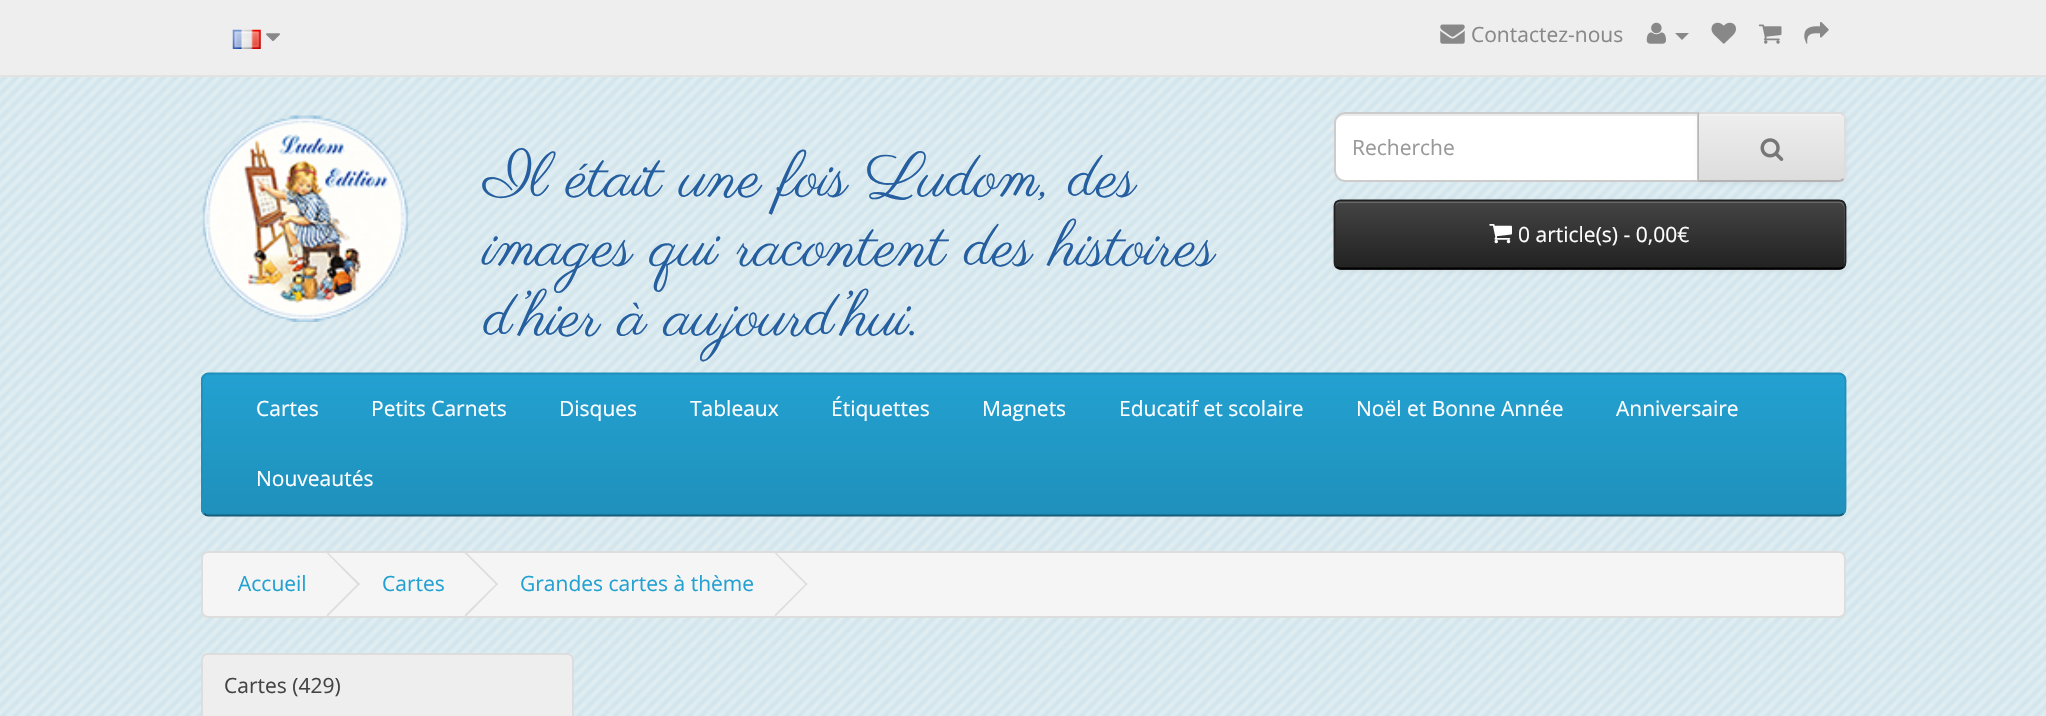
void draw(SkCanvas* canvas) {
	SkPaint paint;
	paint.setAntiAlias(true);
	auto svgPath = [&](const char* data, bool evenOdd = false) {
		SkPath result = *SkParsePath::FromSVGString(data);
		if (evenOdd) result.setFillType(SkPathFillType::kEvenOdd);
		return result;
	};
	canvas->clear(0xffffffff);
	canvas->drawImageRect(SkImages::DeferredFromEncodedData(SkData::MakeFromFileName("img1.png")), SkRect::MakeXYWH(0, 77, 2046, 639), SkSamplingOptions());
	paint.setColor(0xffeeeeee);
	canvas->drawRect(SkRect::MakeXYWH(0, 0, 2046, 75), paint);
	paint.setColor(0xffe2e2e2);
	canvas->drawRect(SkRect::MakeXYWH(0, 75, 2046, 2), paint);
	canvas->drawImageRect(SkImages::DeferredFromEncodedData(SkData::MakeFromFileName("img2.png")), SkRect::MakeXYWH(232, 29, 29, 20), SkSamplingOptions());
	canvas->drawImageRect(SkImages::DeferredFromEncodedData(SkData::MakeFromFileName("img3.png")), SkRect::MakeXYWH(266, 33, 14, 8), SkSamplingOptions());
	canvas->drawImageRect(SkImages::DeferredFromEncodedData(SkData::MakeFromFileName("img4.png")), SkRect::MakeXYWH(1440, 24, 25, 20), SkSamplingOptions());
	SkFont f1(fontMgr->matchFamilyStyle("Open Sans", SkFontStyle::Normal()), 21);
	f1.setSubpixel(true);
	paint.setColor(0xff888888);
	canvas->drawString("Contactez-nous", 1471, 42, f1, paint);
	canvas->drawImageRect(SkImages::DeferredFromEncodedData(SkData::MakeFromFileName("img5.png")), SkRect::MakeXYWH(1646, 22, 20, 22), SkSamplingOptions());
	canvas->drawPath(svgPath("M1675 33H1689L1682 40Z"), paint);
	canvas->drawImageRect(SkImages::DeferredFromEncodedData(SkData::MakeFromFileName("img6.png")), SkRect::MakeXYWH(1711, 22, 25, 22), SkSamplingOptions());
	canvas->drawImageRect(SkImages::DeferredFromEncodedData(SkData::MakeFromFileName("img7.png")), SkRect::MakeXYWH(1758, 24, 24, 20), SkSamplingOptions());
	canvas->drawImageRect(SkImages::DeferredFromEncodedData(SkData::MakeFromFileName("img8.png")), SkRect::MakeXYWH(1804, 22, 25, 22), SkSamplingOptions());
	canvas->drawImageRect(SkImages::DeferredFromEncodedData(SkData::MakeFromFileName("img9.png")), SkRect::MakeXYWH(202, 115, 207, 207), SkSamplingOptions());
	SkFont f2(fontMgr->matchFamilyStyle("Parisienne", SkFontStyle::Normal()), 63);
	f2.setSubpixel(true);
	paint.setColor(0xff265f9f);
	canvas->drawString("Il était une fois Ludom, des", 484, 196, f2, paint);
	canvas->drawString("images qui racontent des histoires", 484, 265, f2, paint);
	canvas->drawString("d’hier à aujourd’hui.", 484, 335, f2, paint);
	paint.setColor(0xffffffff);
	canvas->drawPath(svgPath("M1345 112H1699V182H1345C1339 182 1334 177 1334 171V123C1334 117 1339 112 1345 112Z"), paint);
	paint.setColor(0xffececec);
	canvas->drawPath(svgPath("M1344 116H1698V114H1344C1339 114 1335 118 1335 123V124C1335 119 1339 116 1344 116Z"), paint);
	paint.setStroke(true);
	paint.setStrokeWidth(2);
	paint.setColor(0xffcccccc);
	canvas->drawPath(svgPath("M1345 113H1698V181H1345C1339.5 181 1335 176.5 1335 171V123C1335 117.5 1339.5 113 1345 113Z"), paint);
	paint.setStroke(false);
	paint.setColor(0xff999999);
	canvas->drawString("Recherche", 1352, 155, f1, paint);
	paint.setColor(0x0d000000);
	paint.setMaskFilter(SkMaskFilter::MakeBlur(kNormal_SkBlurStyle, 2));
	canvas->drawRoundRect(SkRect::MakeXYWH(1698, 114, 148, 70), 7, 7, paint);
	paint.setMaskFilter(nullptr);
	canvas->save();
	canvas->clipPath(svgPath("M1698 112H1839C1843 112 1846 115 1846 119V175C1846 179 1843 182 1839 182H1698Z"), true);
	{
		const SkColor colors[] = {0xffeeeeee, 0xffdddddd};
		const float stops[] = {0, 1};
		const SkPoint ends[] = {{1772, 114}, {1772, 180}};
		paint.setShader(SkGradientShader::MakeLinear(ends, colors, stops, 2, SkTileMode::kClamp));
		paint.setAlpha(255);
	}
	canvas->drawRect(SkRect::MakeXYWH(1699, 114, 147, 66), paint);
	canvas->restore();
	paint.setShader(nullptr);
	paint.setColor(0x33ffffff);
	canvas->drawPath(svgPath("M1699 116H1816C1848 116 1844 110 1844 140V178C1845 177 1845 176 1845 175V119C1845 116 1843 114 1840 114H1699Z"), paint);
	paint.setColor(0xffdddddd);
	canvas->drawPath(svgPath("M1698 112L1700 114H1840L1843 116L1844 114C1843 113 1841 112 1839 112Z"), paint);
	canvas->drawPath(svgPath("M1844 114C1845 115 1846 117 1846 119V175C1846 177 1845 179 1844 180L1843 178C1844 178 1844 176 1844 175V119C1844 118 1844 116 1843 116Z"), paint);
	paint.setColor(0xffb3b3b3);
	canvas->drawPath(svgPath("M1698 182H1839C1841 182 1843 181 1844 180L1843 178L1840 180H1700Z"), paint);
	paint.setColor(0xffb7b7b7);
	canvas->drawPath(svgPath("M1699 114H1700L1698 112V182L1700 180H1699Z"), paint);
	canvas->drawImageRect(SkImages::DeferredFromEncodedData(SkData::MakeFromFileName("img10.png")), SkRect::MakeXYWH(1760, 138, 24, 23), SkSamplingOptions());
	paint.setColor(0x0d000000);
	paint.setMaskFilter(SkMaskFilter::MakeBlur(kNormal_SkBlurStyle, 2));
	canvas->drawRoundRect(SkRect::MakeXYWH(1334, 201, 512, 70), 7, 7, paint);
	paint.setMaskFilter(nullptr);
	paint.setColor(0xff363636);
	canvas->drawRoundRect(SkRect::MakeXYWH(1334, 200, 512, 70), 7, 7, paint);
	canvas->save();
	canvas->clipPath(svgPath("M1341 200H1839C1843 200 1846 203 1846 207V263C1846 267 1843 270 1839 270H1341C1337 270 1334 267 1334 263V207C1334 203 1337 200 1341 200Z"), true);
	{
		const SkColor colors[] = {0xff444444, 0xff222222};
		const float stops[] = {0, 1};
		const SkPoint ends[] = {{1590, 201}, {1590, 268}};
		paint.setShader(SkGradientShader::MakeLinear(ends, colors, stops, 2, SkTileMode::kClamp));
		paint.setAlpha(255);
	}
	canvas->drawRect(SkRect::MakeXYWH(1334, 201, 512, 67), paint);
	canvas->restore();
	paint.setShader(nullptr);
	paint.setColor(0x33ffffff);
	canvas->drawPath(svgPath("M1340 203H1839C1842 203 1844 205 1844 208V264V267C1844 266 1845 264 1845 263V206C1845 203 1843 201 1840 201H1340C1337 201 1335 203 1335 206V208C1335 205 1338 203 1340 203Z"), paint);
	paint.setStroke(true);
	paint.setStrokeWidth(1.8);
	paint.setColor(0xff000000);
	canvas->drawPath(svgPath("M1843.5 267C1842.5 268 1841 268.5 1839 268.5H1340.5C1339 268.5 1337.5 268 1336 267"), paint);
	paint.setColor(0xff222222);
	canvas->drawPath(svgPath("M1336 267C1335 265.5 1334.5 264 1334.5 262.5V206.5C1334.5 205 1335 203.5 1336 202C1337.5 201 1339 200.5 1340.5 200.5H1839C1841 200.5 1842.5 201 1843.5 202C1844.5 203.5 1845.5 205 1845.5 206.5V262.5C1845.5 264 1844.5 265.5 1843.5 267"), paint);
	canvas->drawImageRect(SkImages::DeferredFromEncodedData(SkData::MakeFromFileName("img11.png")), SkRect::MakeXYWH(1489, 224, 23, 20), SkSamplingOptions());
	paint.setStroke(false);
	paint.setColor(0xffffffff);
	canvas->drawString("0 article(s) - 0,00€", 1518, 242, f1, paint);
	paint.setColor(0xff229ac8);
	canvas->drawRoundRect(SkRect::MakeXYWH(201, 373, 1645, 143), 7, 7, paint);
	canvas->save();
	canvas->clipPath(svgPath("M208 373H1839C1843 373 1846 376 1846 380V509C1846 513 1843 516 1839 516H208C204 516 201 513 201 509V380C201 376 204 373 208 373Z"), true);
	{
		const SkColor colors[] = {0xff23a1d1, 0xff1f90bb};
		const float stops[] = {0, 1};
		const SkPoint ends[] = {{1024, 374}, {1024, 515}};
		paint.setShader(SkGradientShader::MakeLinear(ends, colors, stops, 2, SkTileMode::kClamp));
		paint.setAlpha(255);
	}
	canvas->drawRect(SkRect::MakeXYWH(201, 375, 1645, 140), paint);
	canvas->restore();
	paint.setStroke(true);
	paint.setShader(nullptr);
	paint.setColor(0xff145e7a);
	canvas->drawPath(svgPath("M1843.5 513.5C1842.5 514.5 1841 515.5 1839 515.5H208C206.5 515.5 205 514.5 204 513.5"), paint);
	paint.setColor(0xff1f90bb);
	canvas->drawPath(svgPath("M204 513.5C203 512.5 202 511 202 509V380C202 378 203 376.5 204 375.5C205 374.5 206.5 373.5 208 373.5H1839C1841 373.5 1842.5 374.5 1843.5 375.5C1844.5 376.5 1845.5 378 1845.5 380V509C1845.5 511 1844.5 512.5 1843.5 513.5"), paint);
	paint.setStroke(false);
	paint.setColor(0xffffffff);
	canvas->drawString("Cartes", 256, 416, f1, paint);
	canvas->drawString("Petits Carnets", 371, 416, f1, paint);
	canvas->drawString("Disques", 559, 416, f1, paint);
	canvas->drawString("Tableaux", 690, 416, f1, paint);
	canvas->drawString("Étiquettes", 831, 416, f1, paint);
	canvas->drawString("Magnets", 982, 416, f1, paint);
	canvas->drawString("Educatif et scolaire", 1119, 416, f1, paint);
	canvas->drawString("Noël et Bonne Année", 1356, 416, f1, paint);
	canvas->drawString("Anniversaire", 1616, 416, f1, paint);
	canvas->drawString("Nouveautés", 256, 486, f1, paint);
	paint.setColor(0xfff5f5f5);
	canvas->drawRoundRect(SkRect::MakeXYWH(202, 552, 1643, 65), 6, 6, paint);
	paint.setStroke(true);
	paint.setStrokeWidth(2);
	paint.setColor(0xffdddddd);
	canvas->drawRoundRect(SkRect::MakeXYWH(202, 552, 1643, 65), 6, 6, paint);
	paint.setStroke(false);
	paint.setColor(0xff23a1d1);
	canvas->drawString("Accueil", 238, 591, f1, paint);
	paint.setColor(0xffdddddd);
	canvas->drawPath(svgPath("M326.5 553L327.5 552L360 584L358.5 585.5Z"), paint);
	canvas->drawPath(svgPath("M326.5 615L358.5 583L360 584L327.5 616.5Z"), paint);
	paint.setColor(0xff23a1d1);
	canvas->drawString("Cartes", 382, 591, f1, paint);
	paint.setColor(0xffdddddd);
	canvas->drawPath(svgPath("M464.5 553L466 552L498 584L497 585.5Z"), paint);
	canvas->drawPath(svgPath("M464.5 615L497 583L498 584L466 616.5Z"), paint);
	paint.setColor(0xff23a1d1);
	canvas->drawString("Grandes cartes à thème", 520, 591, f1, paint);
	paint.setColor(0xffdddddd);
	canvas->drawPath(svgPath("M774.5 553L775.5 552L807.5 584L806.5 585.5Z"), paint);
	canvas->drawPath(svgPath("M774.5 615L806.5 583L807.5 584L775.5 616.5Z"), paint);
	paint.setColor(0xffeeeeee);
	canvas->drawPath(svgPath("M208 654H567C570.5 654 573 656.5 573 660V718H202V660C202 656.5 204.5 654 208 654Z"), paint);
	paint.setStroke(true);
	paint.setColor(0xffdddddd);
	canvas->drawPath(svgPath("M208 654H567C570.5 654 573 656.5 573 660V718H202V660C202 656.5 204.5 654 208 654Z"), paint);
	paint.setStroke(false);
	paint.setColor(0xff444444);
	canvas->drawString("Cartes (429)", 224, 693, f1, paint);
}
